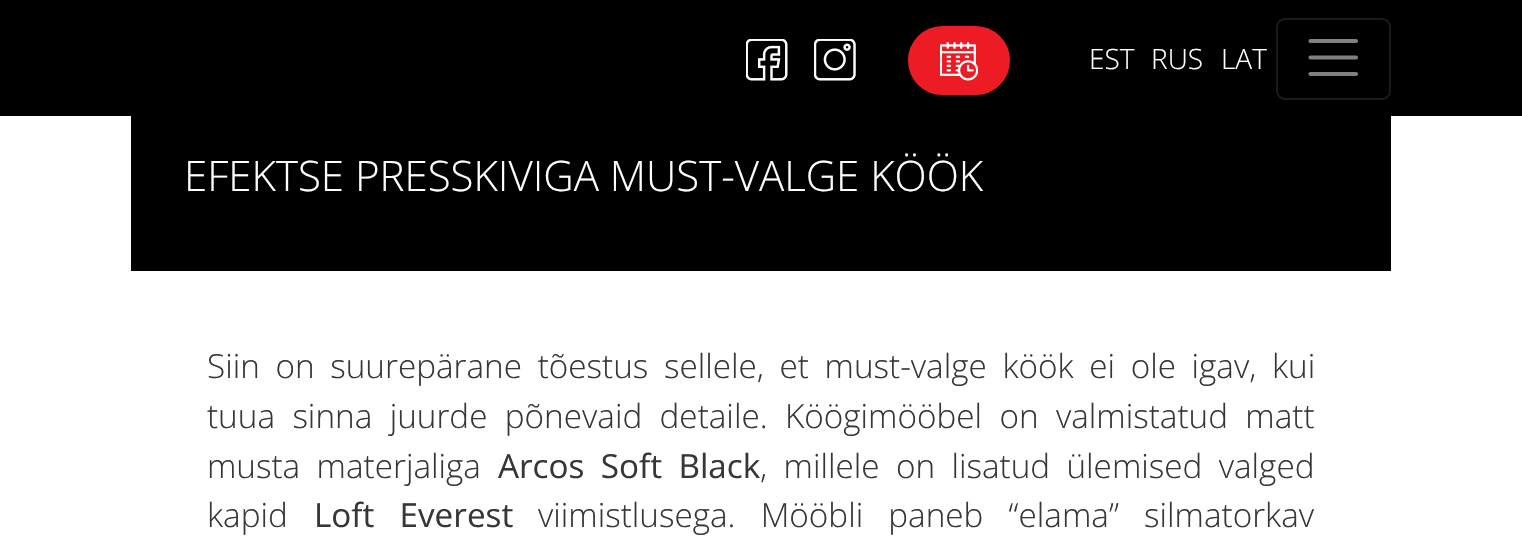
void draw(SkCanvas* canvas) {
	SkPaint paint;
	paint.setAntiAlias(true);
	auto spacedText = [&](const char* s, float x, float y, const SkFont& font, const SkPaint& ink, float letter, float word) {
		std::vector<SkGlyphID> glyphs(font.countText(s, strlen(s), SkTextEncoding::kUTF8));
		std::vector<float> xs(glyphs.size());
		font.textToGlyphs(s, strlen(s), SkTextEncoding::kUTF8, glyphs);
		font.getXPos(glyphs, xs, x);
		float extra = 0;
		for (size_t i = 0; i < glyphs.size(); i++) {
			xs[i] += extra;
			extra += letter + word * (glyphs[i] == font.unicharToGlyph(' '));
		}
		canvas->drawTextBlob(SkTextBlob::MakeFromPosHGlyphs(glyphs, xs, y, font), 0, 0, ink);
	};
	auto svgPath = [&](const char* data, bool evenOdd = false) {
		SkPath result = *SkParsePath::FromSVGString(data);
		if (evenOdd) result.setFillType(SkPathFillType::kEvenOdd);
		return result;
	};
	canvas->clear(0xffffffff);
	paint.setColor(0xff000000);
	canvas->drawRect(SkRect::MakeXYWH(0, 0, 1522, 116), paint);
	canvas->drawImageRect(SkImages::DeferredFromEncodedData(SkData::MakeFromFileName("img1.png")), SkRect::MakeXYWH(746, 39, 42, 42), SkSamplingOptions());
	canvas->drawImageRect(SkImages::DeferredFromEncodedData(SkData::MakeFromFileName("img2.png")), SkRect::MakeXYWH(814, 39, 42, 42), SkSamplingOptions());
	paint.setColor(0xffed1c24);
	canvas->drawRoundRect(SkRect::MakeXYWH(909, 27, 100, 67), 33.5, 33.5, paint);
	paint.setStroke(true);
	paint.setStrokeWidth(2);
	canvas->drawRoundRect(SkRect::MakeXYWH(909, 27, 100, 67), 33.5, 33.5, paint);
	canvas->drawImageRect(SkImages::DeferredFromEncodedData(SkData::MakeFromFileName("img3.png")), SkRect::MakeXYWH(940, 42, 38, 39), SkSamplingOptions());
	SkFont f1(fontMgr->matchFamilyStyle("Open Sans", SkFontStyle(300, SkFontStyle::kNormal_Width, SkFontStyle::kUpright_Slant)), 28);
	f1.setSubpixel(true);
	paint.setStroke(false);
	paint.setColor(0xffffffff);
	canvas->drawString("EST", 1089, 69, f1, paint);
	canvas->drawString("RUS", 1151, 69, f1, paint);
	canvas->drawString("LAT", 1221, 69, f1, paint);
	paint.setStroke(true);
	paint.setColor(0xff1a1a1a);
	canvas->drawRoundRect(SkRect::MakeXYWH(1277, 19, 113, 80), 8, 8, paint);
	paint.setStrokeWidth(4.2);
	paint.setStrokeCap(SkPaint::kRound_Cap);
	paint.setColor(0xff808080);
	canvas->drawPath(svgPath("M1310.5 41H1356M1310.5 57.5H1356M1310.5 74H1356"), paint);
	paint.setStroke(false);
	paint.setColor(0xff000000);
	canvas->drawRect(SkRect::MakeXYWH(131, 116, 1260, 155), paint);
	SkFont f2(fontMgr->matchFamilyStyle("Open Sans", SkFontStyle(300, SkFontStyle::kNormal_Width, SkFontStyle::kUpright_Slant)), 42);
	f2.setSubpixel(true);
	paint.setColor(0xffffffff);
	canvas->drawString("EFEKTSE PRESSKIVIGA MUST-VALGE KÖÖK", 184, 191, f2, paint);
	SkFont f3(fontMgr->matchFamilyStyle("Open Sans", SkFontStyle(300, SkFontStyle::kNormal_Width, SkFontStyle::kUpright_Slant)), 33.25);
	f3.setSubpixel(true);
	paint.setColor(0xff373737);
	spacedText("Siin on suurepärane tõestus sellele, et must-valge köök ei ole igav, kui", 207, 378, f3, paint, 0, 7);
	spacedText("tuua sinna juurde põnevaid detaile. Köögimööbel on valmistatud matt", 207, 428, f3, paint, 0, 8.75);
	spacedText("musta materjaliga", 207, 478, f3, paint, 0, 7.75);
	SkFont f4(fontMgr->matchFamilyStyle("Open Sans", SkFontStyle::Normal()), 33.25);
	f4.setSubpixel(true);
	spacedText("Arcos Soft Black", 498, 478, f4, paint, 0, 7.75);
	spacedText(", millele on lisatud ülemised valged", 760, 478, f3, paint, 0, 7.75);
	canvas->drawString("kapid", 207, 527, f3, paint);
	spacedText("Loft Everest", 314, 527, f4, paint, 0, 16.5);
	spacedText("viimistlusega. Mööbli paneb “elama” silmatorkav", 538, 527, f3, paint, 0, 16.5);
}
